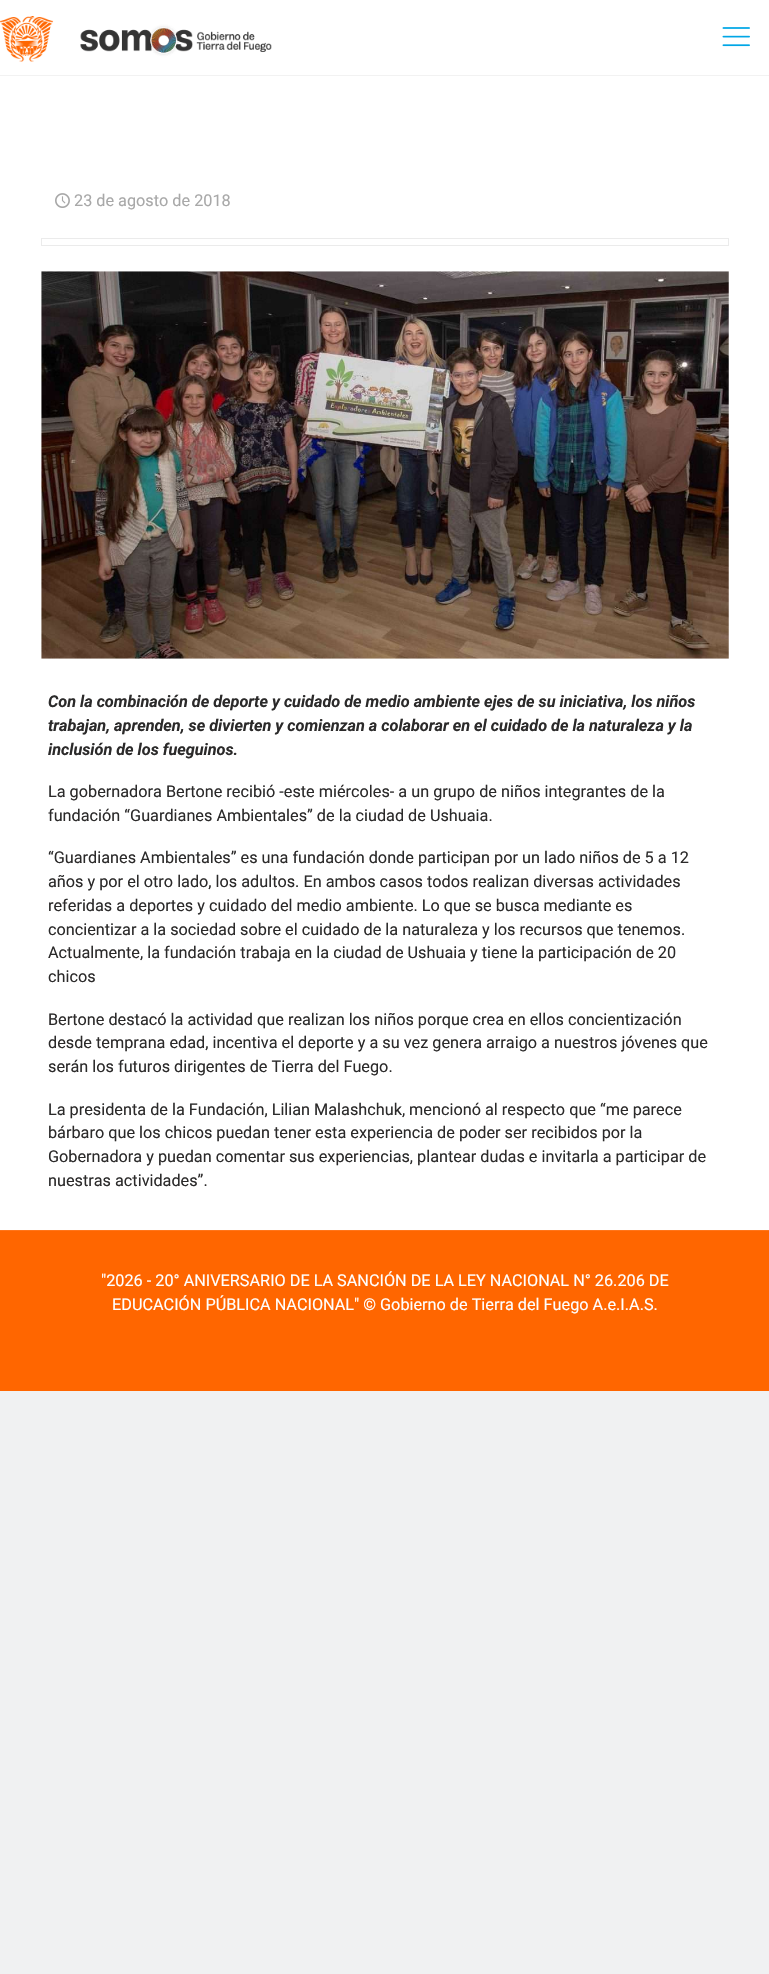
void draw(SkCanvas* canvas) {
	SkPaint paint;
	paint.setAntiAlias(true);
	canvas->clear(0xfff0f1f2);
	paint.setColor(0xffffffff);
	canvas->drawRect(SkRect::MakeXYWH(0, 0, 769, 1230), paint);
	paint.setColor(0xfff2f2f2);
	canvas->drawRect(SkRect::MakeXYWH(0, 75, 769, 1), paint);
	canvas->drawImageRect(SkImages::DeferredFromEncodedData(SkData::MakeFromFileName("img1.png")), SkRect::MakeXYWH(0, 16, 272, 46), SkSamplingOptions());
	canvas->drawImageRect(SkImages::DeferredFromEncodedData(SkData::MakeFromFileName("img2.png")), SkRect::MakeXYWH(722, 27, 28, 20), SkSamplingOptions());
	canvas->drawImageRect(SkImages::DeferredFromEncodedData(SkData::MakeFromFileName("img3.png")), SkRect::MakeXYWH(55, 193, 15, 15), SkSamplingOptions());
	SkFont f1(fontMgr->matchFamilyStyle("Roboto", SkFontStyle::Normal()), 16.25);
	f1.setSubpixel(true);
	paint.setColor(0xffa8a8a8);
	canvas->drawString("23 de agosto de 2018", 74, 206, f1, paint);
	paint.setStroke(true);
	paint.setStrokeWidth(1);
	paint.setColor(0xffebebeb);
	canvas->drawRect(SkRect::MakeXYWH(41.5, 238.5, 687, 7), paint);
	canvas->drawImageRect(SkImages::DeferredFromEncodedData(SkData::MakeFromFileName("img4.png")), SkRect::MakeXYWH(41, 271, 688, 388), SkSamplingOptions());
	SkFont f2(fontMgr->matchFamilyStyle("Roboto", SkFontStyle::BoldItalic()), 16.25);
	f2.setSubpixel(true);
	paint.setStroke(false);
	paint.setColor(0xff2b2a2a);
	canvas->drawString("Con la combinación de deporte y cuidado de medio ambiente ejes de su iniciativa, los niños", 48, 707, f2, paint);
	canvas->drawString("trabajan, aprenden, se divierten y comienzan a colaborar en el cuidado de la naturaleza y la", 48, 731, f2, paint);
	canvas->drawString("inclusión de los fueguinos.", 48, 755, f2, paint);
	canvas->drawString("La gobernadora Bertone recibió -este miércoles- a un grupo de niños integrantes de la", 48, 797, f1, paint);
	canvas->drawString("fundación “Guardianes Ambientales” de la ciudad de Ushuaia.", 48, 821, f1, paint);
	canvas->drawString("“Guardianes Ambientales” es una fundación donde participan por un lado niños de 5 a 12", 48, 863, f1, paint);
	canvas->drawString("años y por el otro lado, los adultos. En ambos casos todos realizan diversas actividades", 48, 887, f1, paint);
	canvas->drawString("referidas a deportes y cuidado del medio ambiente. Lo que se busca mediante es", 48, 911, f1, paint);
	canvas->drawString("concientizar a la sociedad sobre el cuidado de la naturaleza y los recursos que tenemos.", 48, 935, f1, paint);
	canvas->drawString("Actualmente, la fundación trabaja en la ciudad de Ushuaia y tiene la participación de 20", 48, 958, f1, paint);
	canvas->drawString("chicos", 48, 982, f1, paint);
	canvas->drawString("Bertone destacó la actividad que realizan los niños porque crea en ellos concientización", 48, 1025, f1, paint);
	canvas->drawString("desde temprana edad, incentiva el deporte y a su vez genera arraigo a nuestros jóvenes que", 48, 1048, f1, paint);
	canvas->drawString("serán los futuros dirigentes de Tierra del Fuego.", 48, 1072, f1, paint);
	canvas->drawString("La presidenta de la Fundación, Lilian Malashchuk, mencionó al respecto que “me parece", 48, 1115, f1, paint);
	canvas->drawString("bárbaro que los chicos puedan tener esta experiencia de poder ser recibidos por la", 48, 1138, f1, paint);
	canvas->drawString("Gobernadora y puedan comentar sus experiencias, plantear dudas e invitarla a participar de", 48, 1162, f1, paint);
	canvas->drawString("nuestras actividades”.", 48, 1186, f1, paint);
	paint.setColor(0xffff6600);
	canvas->drawRect(SkRect::MakeXYWH(0, 1231, 769, 160), paint);
	paint.setColor(0xffff751a);
	canvas->drawRect(SkRect::MakeXYWH(0, 1230, 769, 1), paint);
	paint.setColor(0xffffffff);
	canvas->drawString("\"2026 - 20° ANIVERSARIO DE LA SANCIÓN DE LA LEY NACIONAL N° 26.206 DE", 101, 1286, f1, paint);
	canvas->drawString("EDUCACIÓN PÚBLICA NACIONAL\" © Gobierno de Tierra del Fuego A.e.I.A.S.", 112, 1310, f1, paint);
}
